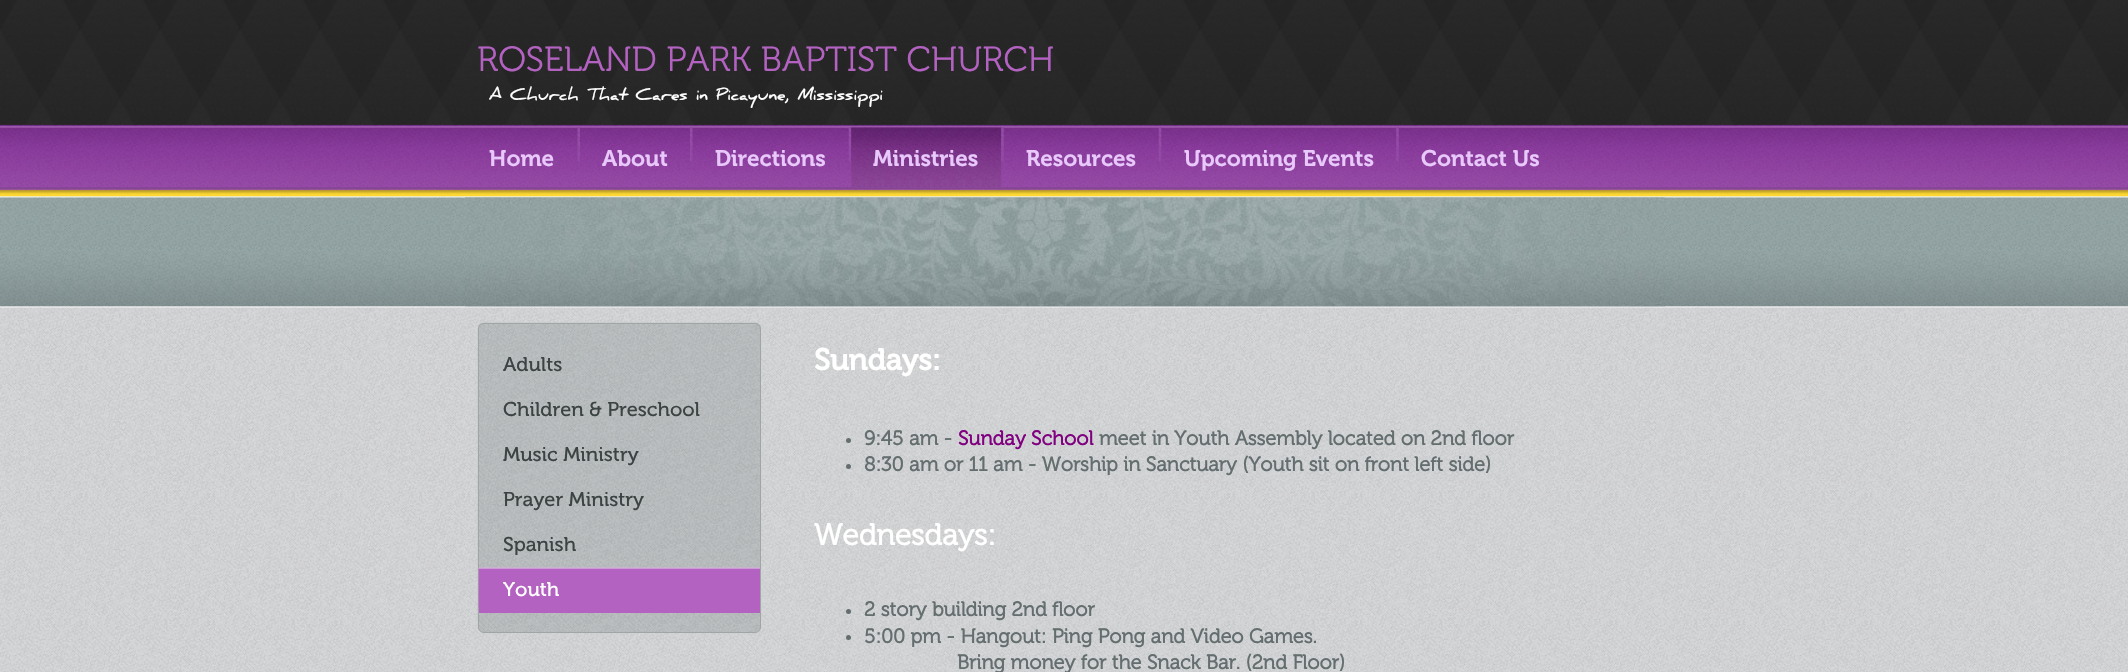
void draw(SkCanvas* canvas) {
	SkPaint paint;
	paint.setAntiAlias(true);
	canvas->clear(0xffffffff);
	canvas->drawImageRect(SkImages::DeferredFromEncodedData(SkData::MakeFromFileName("img1.png")), SkRect::MakeXYWH(0, 307, 2128, 365), SkSamplingOptions());
	canvas->drawImageRect(SkImages::DeferredFromEncodedData(SkData::MakeFromFileName("img2.png")), SkRect::MakeXYWH(0, 0, 2128, 308), SkSamplingOptions());
	SkFont f1(fontMgr->matchFamilyStyle("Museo", SkFontStyle(300, SkFontStyle::kNormal_Width, SkFontStyle::kUpright_Slant)), 35);
	f1.setSubpixel(true);
	paint.setColor(0xffb362c1);
	canvas->drawString("ROSELAND PARK BAPTIST CHURCH", 477, 71, f1, paint);
	SkFont f2(fontMgr->matchFamilyStyle("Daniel", SkFontStyle::Bold()), 16);
	f2.setSubpixel(true);
	paint.setColor(0xffffffff);
	canvas->drawString("A Church That Cares in Picayune, Mississippi", 489, 100, f2, paint);
	SkFont f3(fontMgr->matchFamilyStyle("Museo", SkFontStyle(600, SkFontStyle::kNormal_Width, SkFontStyle::kUpright_Slant)), 22.5);
	f3.setSubpixel(true);
	paint.setColor(0xffe9c8fc);
	canvas->drawString("Home", 489, 166, f3, paint);
	canvas->drawImageRect(SkImages::DeferredFromEncodedData(SkData::MakeFromFileName("img3.png")), SkRect::MakeXYWH(577, 127, 3, 42), SkSamplingOptions());
	canvas->drawString("About", 602, 166, f3, paint);
	canvas->drawImageRect(SkImages::DeferredFromEncodedData(SkData::MakeFromFileName("img4.png")), SkRect::MakeXYWH(690, 127, 3, 42), SkSamplingOptions());
	canvas->drawString("Directions", 715, 166, f3, paint);
	canvas->drawImageRect(SkImages::DeferredFromEncodedData(SkData::MakeFromFileName("img5.png")), SkRect::MakeXYWH(848, 127, 4, 48), SkSamplingOptions());
	canvas->drawImageRect(SkImages::DeferredFromEncodedData(SkData::MakeFromFileName("img6.png")), SkRect::MakeXYWH(851, 127, 151, 61), SkSamplingOptions());
	canvas->drawString("Ministries", 873, 166, f3, paint);
	canvas->drawImageRect(SkImages::DeferredFromEncodedData(SkData::MakeFromFileName("img7.png")), SkRect::MakeXYWH(1001, 127, 3, 44), SkSamplingOptions());
	canvas->drawString("Resources", 1026, 166, f3, paint);
	canvas->drawImageRect(SkImages::DeferredFromEncodedData(SkData::MakeFromFileName("img8.png")), SkRect::MakeXYWH(1158, 127, 4, 48), SkSamplingOptions());
	canvas->drawString("Upcoming Events", 1184, 166, f3, paint);
	canvas->drawImageRect(SkImages::DeferredFromEncodedData(SkData::MakeFromFileName("img9.png")), SkRect::MakeXYWH(1396, 127, 3, 42), SkSamplingOptions());
	canvas->drawString("Contact Us", 1421, 166, f3, paint);
	canvas->drawImageRect(SkImages::DeferredFromEncodedData(SkData::MakeFromFileName("img10.png")), SkRect::MakeXYWH(465, 197, 1200, 110), SkSamplingOptions());
	canvas->drawImageRect(SkImages::DeferredFromEncodedData(SkData::MakeFromFileName("img11.png")), SkRect::MakeXYWH(477, 322, 284, 311), SkSamplingOptions());
	paint.setStroke(true);
	paint.setStrokeWidth(1);
	paint.setColor(0xffa0a5a5);
	canvas->drawRoundRect(SkRect::MakeXYWH(478.5, 323.5, 282, 309), 5.5, 5.5, paint);
	SkFont f4(fontMgr->matchFamilyStyle("Museo", SkFontStyle::Normal()), 20);
	f4.setSubpixel(true);
	paint.setStroke(false);
	paint.setColor(0xff3c4343);
	canvas->drawString("Adults", 503, 371, f4, paint);
	canvas->drawString("Children & Preschool", 503, 416, f4, paint);
	canvas->drawString("Music Ministry", 503, 461, f4, paint);
	canvas->drawString("Prayer Ministry", 503, 506, f4, paint);
	canvas->drawString("Spanish", 503, 551, f4, paint);
	paint.setColor(0xffb362c1);
	canvas->drawRect(SkRect::MakeXYWH(479, 607, 281, 6), paint);
	canvas->drawImageRect(SkImages::DeferredFromEncodedData(SkData::MakeFromFileName("img12.png")), SkRect::MakeXYWH(478, 567, 282, 41), SkSamplingOptions());
	paint.setColor(0xffffffff);
	canvas->drawString("Youth", 503, 596, f4, paint);
	SkFont f5(fontMgr->matchFamilyStyle("Museo", SkFontStyle::Bold()), 30);
	f5.setSubpixel(true);
	canvas->drawString("Sundays:", 814, 370, f5, paint);
	paint.setColor(0xff646e6e);
	canvas->drawCircle(848.5, 440.5, 2.5, paint);
	SkFont f6(fontMgr->matchFamilyStyle("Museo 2", SkFontStyle::Bold()), 20);
	f6.setSubpixel(true);
	canvas->drawString("9:45 am -", 864, 445, f6, paint);
	paint.setColor(0xff800080);
	canvas->drawString("Sunday School", 958, 445, f6, paint);
	paint.setColor(0xff646e6e);
	canvas->drawString("meet in Youth Assembly located on 2nd floor", 1099, 445, f6, paint);
	canvas->drawCircle(848.5, 466.5, 2.5, paint);
	canvas->drawString("8:30 am or 11 am - Worship in Sanctuary (Youth sit on front left side)", 864, 471, f6, paint);
	SkFont f7(fontMgr->matchFamilyStyle("Museo 2", SkFontStyle::Bold()), 30);
	f7.setSubpixel(true);
	paint.setColor(0xffffffff);
	canvas->drawString("Wednesdays:", 814, 545, f7, paint);
	paint.setColor(0xff646e6e);
	canvas->drawCircle(848.5, 611.5, 2.5, paint);
	canvas->drawString("2 story building 2nd floor", 864, 616, f6, paint);
	canvas->drawCircle(848.5, 637.5, 2.5, paint);
	canvas->drawString("5:00 pm - Hangout: Ping Pong and Video Games.", 864, 643, f6, paint);
	canvas->drawString("Bring money for the Snack Bar. (2nd Floor)", 957, 669, f6, paint);
}
